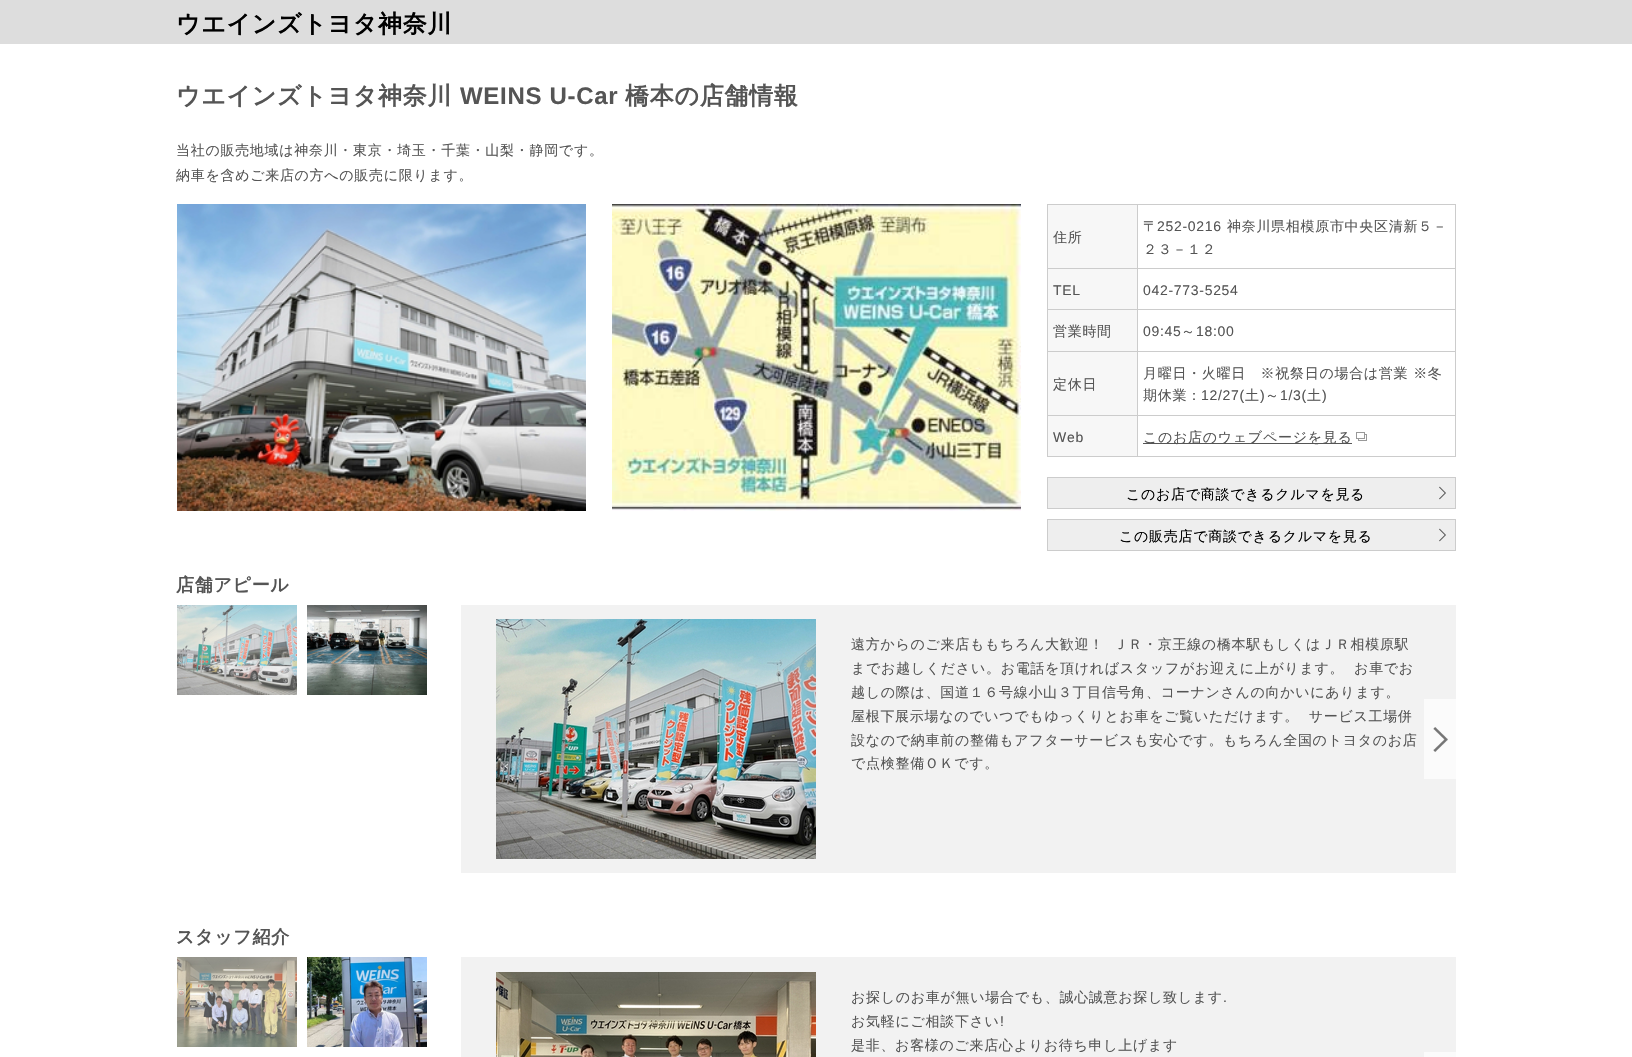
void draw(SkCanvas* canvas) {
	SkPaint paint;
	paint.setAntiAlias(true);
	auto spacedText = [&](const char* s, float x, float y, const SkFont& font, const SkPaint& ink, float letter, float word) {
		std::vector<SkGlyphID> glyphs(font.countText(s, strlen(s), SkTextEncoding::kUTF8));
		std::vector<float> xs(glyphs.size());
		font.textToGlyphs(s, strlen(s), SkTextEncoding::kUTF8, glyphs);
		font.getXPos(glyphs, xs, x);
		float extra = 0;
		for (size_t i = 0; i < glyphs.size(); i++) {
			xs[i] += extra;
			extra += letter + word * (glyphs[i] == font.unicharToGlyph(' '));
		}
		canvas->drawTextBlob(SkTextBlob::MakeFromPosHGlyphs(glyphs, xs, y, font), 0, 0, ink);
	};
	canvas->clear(0xffffffff);
	paint.setColor(0xffdddddd);
	canvas->drawRect(SkRect::MakeXYWH(0, 0, 1632, 44), paint);
	SkFont f1(fontMgr->matchFamilyStyle("WenQuanYi Zen Hei", SkFontStyle::Bold()), 24);
	f1.setSubpixel(true);
	paint.setColor(0xff000000);
	spacedText("ウエインズトヨタ神奈川", 176, 32, f1, paint, 0.7, 0);
	paint.setColor(0xff555555);
	spacedText("ウエインズトヨタ神奈川", 176, 104, f1, paint, 0.7, 0);
	SkFont f2(fontMgr->matchFamilyStyle("Liberation Sans", SkFontStyle::Bold()), 24);
	f2.setSubpixel(true);
	spacedText("WEINS U-Car", 460, 104, f2, paint, 0.7, 0);
	spacedText("橋本の店舗情報", 625, 104, f1, paint, 0.7, 0);
	SkFont f3(fontMgr->matchFamilyStyle("WenQuanYi Zen Hei", SkFontStyle(500, SkFontStyle::kNormal_Width, SkFontStyle::kUpright_Slant)), 14);
	f3.setSubpixel(true);
	spacedText("当社の販売地域は神奈川・東京・埼玉・千葉・山梨・静岡です。", 176, 155, f3, paint, 0.7, 0);
	spacedText("納車を含めご来店の方への販売に限ります。", 176, 180, f3, paint, 0.7, 0);
	canvas->drawImageRect(SkImages::DeferredFromEncodedData(SkData::MakeFromFileName("img1.png")), SkRect::MakeXYWH(177, 204, 409, 307), SkSamplingOptions());
	canvas->drawImageRect(SkImages::DeferredFromEncodedData(SkData::MakeFromFileName("img2.png")), SkRect::MakeXYWH(612, 204, 409, 307), SkSamplingOptions());
	paint.setColor(0xffcccccc);
	canvas->drawRect(SkRect::MakeXYWH(1047, 204, 409, 1), paint);
	canvas->drawRect(SkRect::MakeXYWH(1455, 204, 1, 253), paint);
	canvas->drawRect(SkRect::MakeXYWH(1047, 456, 409, 1), paint);
	canvas->drawRect(SkRect::MakeXYWH(1047, 204, 1, 253), paint);
	paint.setColor(0xfff7f7f7);
	canvas->drawRect(SkRect::MakeXYWH(1048, 205, 89, 63), paint);
	paint.setColor(0xff555555);
	spacedText("住所", 1053, 242, f3, paint, 0.7, 0);
	paint.setColor(0xffcccccc);
	canvas->drawRect(SkRect::MakeXYWH(1137, 268, 319, 1), paint);
	canvas->drawRect(SkRect::MakeXYWH(1137, 309, 319, 1), paint);
	canvas->drawRect(SkRect::MakeXYWH(1137, 351, 319, 1), paint);
	canvas->drawRect(SkRect::MakeXYWH(1137, 415, 319, 1), paint);
	canvas->drawRect(SkRect::MakeXYWH(1137, 415, 1, 42), paint);
	canvas->drawRect(SkRect::MakeXYWH(1047, 415, 91, 1), paint);
	canvas->drawRect(SkRect::MakeXYWH(1137, 351, 1, 65), paint);
	canvas->drawRect(SkRect::MakeXYWH(1047, 351, 91, 1), paint);
	canvas->drawRect(SkRect::MakeXYWH(1137, 309, 1, 43), paint);
	canvas->drawRect(SkRect::MakeXYWH(1047, 309, 91, 1), paint);
	canvas->drawRect(SkRect::MakeXYWH(1137, 268, 1, 42), paint);
	canvas->drawRect(SkRect::MakeXYWH(1047, 268, 91, 1), paint);
	canvas->drawRect(SkRect::MakeXYWH(1137, 204, 1, 65), paint);
	paint.setColor(0xff555555);
	spacedText("〒", 1143, 231, f3, paint, 0.7, 0);
	SkFont f4(fontMgr->matchFamilyStyle("Liberation Sans", SkFontStyle::Normal()), 14);
	f4.setSubpixel(true);
	spacedText("252-0216", 1157, 231, f4, paint, 0.7, 0);
	spacedText("神奈川県相模原市中央区清新５－", 1227, 231, f3, paint, 0.7, 0);
	spacedText("２３－１２", 1143, 254, f3, paint, 0.7, 0);
	paint.setColor(0xfff7f7f7);
	canvas->drawRect(SkRect::MakeXYWH(1048, 269, 89, 40), paint);
	paint.setColor(0xff555555);
	spacedText("TEL", 1053, 295, f4, paint, 0.7, 0);
	spacedText("042-773-5254", 1143, 295, f4, paint, 0.7, 0);
	paint.setColor(0xfff7f7f7);
	canvas->drawRect(SkRect::MakeXYWH(1048, 310, 89, 41), paint);
	paint.setColor(0xff555555);
	spacedText("営業時間", 1053, 336, f3, paint, 0.7, 0);
	spacedText("09:45", 1143, 336, f4, paint, 0.7, 0);
	spacedText("～", 1181, 336, f3, paint, 0.7, 0);
	spacedText("18:00", 1196, 336, f4, paint, 0.7, 0);
	paint.setColor(0xfff7f7f7);
	canvas->drawRect(SkRect::MakeXYWH(1048, 352, 89, 63), paint);
	paint.setColor(0xff555555);
	spacedText("定休日", 1053, 389, f3, paint, 0.7, 0);
	spacedText("月曜日・火曜日　※祝祭日の場合は営業 ※冬", 1143, 378, f3, paint, 0.7, 0);
	spacedText("期休業：", 1143, 400, f3, paint, 0.7, 0);
	spacedText("12/27(", 1201, 400, f4, paint, 0.7, 0);
	spacedText("土", 1245, 400, f3, paint, 0.7, 0);
	spacedText(")", 1260, 400, f4, paint, 0.7, 0);
	spacedText("～", 1265, 400, f3, paint, 0.7, 0);
	spacedText("1/3(", 1280, 400, f4, paint, 0.7, 0);
	spacedText("土", 1307, 400, f3, paint, 0.7, 0);
	spacedText(")", 1322, 400, f4, paint, 0.7, 0);
	paint.setColor(0xfff7f7f7);
	canvas->drawRect(SkRect::MakeXYWH(1048, 416, 89, 40), paint);
	paint.setColor(0xff555555);
	spacedText("Web", 1053, 442, f4, paint, 0.7, 0);
	canvas->drawRect(SkRect::MakeXYWH(1143, 443, 209, 1), paint);
	spacedText("このお店のウェブページを見る", 1143, 442, f3, paint, 0.7, 0);
	canvas->drawImageRect(SkImages::DeferredFromEncodedData(SkData::MakeFromFileName("img3.png")), SkRect::MakeXYWH(1356, 432, 11, 9), SkSamplingOptions());
	paint.setColor(0xffeeeeee);
	canvas->drawRect(SkRect::MakeXYWH(1048, 478, 407, 30), paint);
	canvas->drawImageRect(SkImages::DeferredFromEncodedData(SkData::MakeFromFileName("img4.png")), SkRect::MakeXYWH(1439, 486, 7, 14), SkSamplingOptions());
	paint.setStroke(true);
	paint.setStrokeWidth(1);
	paint.setColor(0xffcccccc);
	canvas->drawRect(SkRect::MakeXYWH(1047.5, 477.5, 408, 31), paint);
	paint.setStroke(false);
	paint.setColor(0xff000000);
	spacedText("このお店で商談できるクルマを見る", 1126, 499, f3, paint, 0.7, 0);
	paint.setColor(0xffeeeeee);
	canvas->drawRect(SkRect::MakeXYWH(1048, 520, 407, 30), paint);
	canvas->drawImageRect(SkImages::DeferredFromEncodedData(SkData::MakeFromFileName("img4.png")), SkRect::MakeXYWH(1439, 528, 7, 14), SkSamplingOptions());
	paint.setStroke(true);
	paint.setColor(0xffcccccc);
	canvas->drawRect(SkRect::MakeXYWH(1047.5, 519.5, 408, 31), paint);
	paint.setStroke(false);
	paint.setColor(0xff000000);
	spacedText("この販売店で商談できるクルマを見る", 1119, 541, f3, paint, 0.7, 0);
	SkFont f5(fontMgr->matchFamilyStyle("WenQuanYi Zen Hei", SkFontStyle::Bold()), 18);
	f5.setSubpixel(true);
	paint.setColor(0xff555555);
	spacedText("店舗アピール", 176, 591, f5, paint, 0.7, 0);
	canvas->drawImageRect(SkImages::DeferredFromEncodedData(SkData::MakeFromFileName("img5.png")), SkRect::MakeXYWH(177, 605, 120, 90), SkSamplingOptions());
	canvas->drawImageRect(SkImages::DeferredFromEncodedData(SkData::MakeFromFileName("img6.png")), SkRect::MakeXYWH(307, 605, 120, 90), SkSamplingOptions());
	paint.setColor(0xfff2f2f2);
	canvas->drawRect(SkRect::MakeXYWH(461, 605, 995, 268), paint);
	canvas->drawImageRect(SkImages::DeferredFromEncodedData(SkData::MakeFromFileName("img7.png")), SkRect::MakeXYWH(496, 619, 320, 240), SkSamplingOptions());
	paint.setColor(0xff555555);
	spacedText("遠方からのご来店ももちろん大歓迎！  ＪＲ・京王線の橋本駅もしくはＪＲ相模原駅", 851, 649, f3, paint, 0.7, 0);
	spacedText("までお越しください。お電話を頂ければスタッフがお迎えに上がります。  お車でお", 851, 673, f3, paint, 0.7, 0);
	spacedText("越しの際は、国道１６号線小山３丁目信号角、コーナンさんの向かいにあります。", 851, 697, f3, paint, 0.7, 0);
	spacedText("屋根下展示場なのでいつでもゆっくりとお車をご覧いただけます。  サービス工場併", 851, 721, f3, paint, 0.7, 0);
	spacedText("設なので納車前の整備もアフターサービスも安心です。もちろん全国のトヨタのお店", 851, 745, f3, paint, 0.7, 0);
	spacedText("で点検整備ＯＫです。", 851, 768, f3, paint, 0.7, 0);
	paint.setColor(0xfffbfbfb);
	canvas->drawRect(SkRect::MakeXYWH(1424, 699, 32, 80), paint);
	canvas->drawImageRect(SkImages::DeferredFromEncodedData(SkData::MakeFromFileName("img8.png")), SkRect::MakeXYWH(1433, 727, 15, 25), SkSamplingOptions());
	paint.setColor(0xff555555);
	spacedText("スタッフ紹介", 176, 943, f5, paint, 0.7, 0);
	canvas->drawImageRect(SkImages::DeferredFromEncodedData(SkData::MakeFromFileName("img9.png")), SkRect::MakeXYWH(177, 957, 120, 90), SkSamplingOptions());
	canvas->drawImageRect(SkImages::DeferredFromEncodedData(SkData::MakeFromFileName("img10.png")), SkRect::MakeXYWH(307, 957, 120, 90), SkSamplingOptions());
	paint.setColor(0xfff2f2f2);
	canvas->drawRect(SkRect::MakeXYWH(461, 957, 995, 100), paint);
	canvas->drawImageRect(SkImages::DeferredFromEncodedData(SkData::MakeFromFileName("img11.png")), SkRect::MakeXYWH(496, 972, 320, 85), SkSamplingOptions());
	paint.setColor(0xff555555);
	spacedText("お探しのお車が無い場合でも、誠心誠意お探し致します", 851, 1002, f3, paint, 0.7, 0);
	spacedText(".", 1223, 1002, f4, paint, 0.7, 0);
	spacedText("お気軽にご相談下さい", 851, 1026, f3, paint, 0.7, 0);
	spacedText("!", 1000, 1026, f4, paint, 0.7, 0);
	spacedText("是非、お客様のご来店心よりお待ち申し上げます", 851, 1050, f3, paint, 0.7, 0);
	paint.setColor(0xfffbfbfb);
	canvas->drawRect(SkRect::MakeXYWH(1424, 1052, 32, 5), paint);
}
